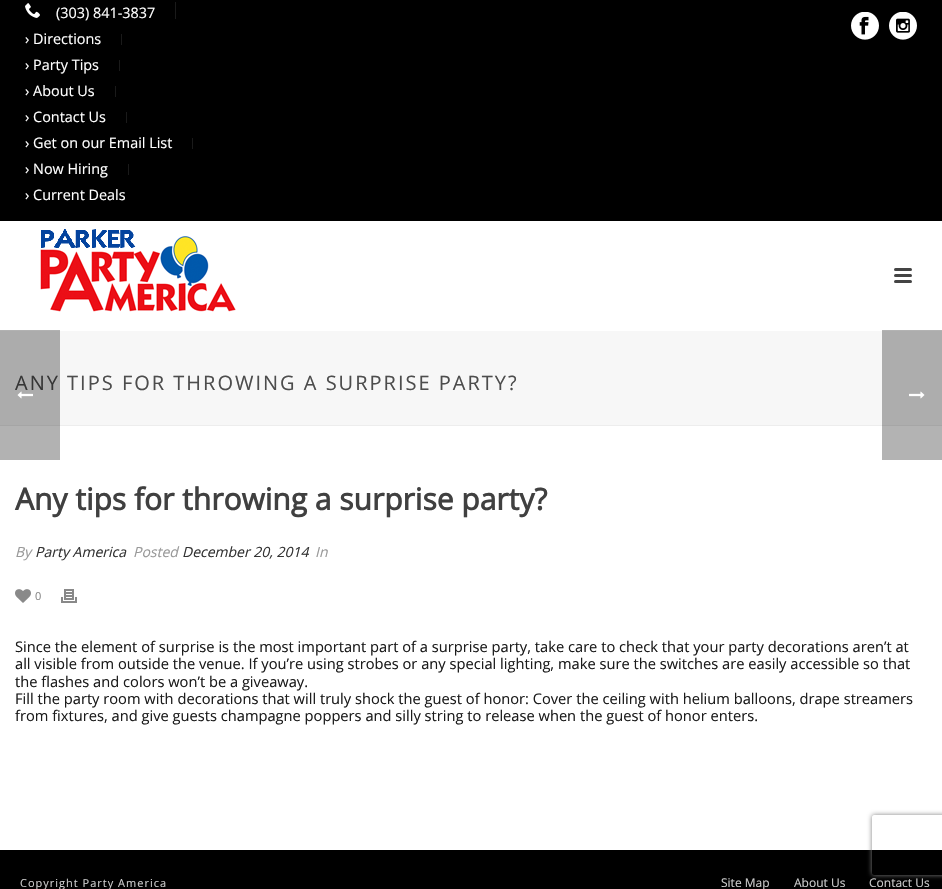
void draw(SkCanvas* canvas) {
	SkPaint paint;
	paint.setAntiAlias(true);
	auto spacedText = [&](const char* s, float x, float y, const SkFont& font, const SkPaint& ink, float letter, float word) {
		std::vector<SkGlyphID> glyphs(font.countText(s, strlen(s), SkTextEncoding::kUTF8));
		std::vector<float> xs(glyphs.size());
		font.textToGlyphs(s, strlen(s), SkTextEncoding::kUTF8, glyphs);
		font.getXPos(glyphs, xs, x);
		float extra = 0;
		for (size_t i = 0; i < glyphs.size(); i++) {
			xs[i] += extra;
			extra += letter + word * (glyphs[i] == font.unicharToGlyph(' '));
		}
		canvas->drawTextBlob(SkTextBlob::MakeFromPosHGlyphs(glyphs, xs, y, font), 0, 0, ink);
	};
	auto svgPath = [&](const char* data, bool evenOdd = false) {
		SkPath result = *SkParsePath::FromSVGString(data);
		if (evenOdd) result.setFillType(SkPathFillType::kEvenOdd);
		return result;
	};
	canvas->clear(0xff000000);
	paint.setColor(0xfff7f7f7);
	canvas->drawRect(SkRect::MakeXYWH(0, 331, 882, 94), paint);
	paint.setColor(0xffadadad);
	canvas->drawRect(SkRect::MakeXYWH(882, 331, 60, 94), paint);
	paint.setColor(0xffededed);
	canvas->drawRect(SkRect::MakeXYWH(0, 425, 882, 1), paint);
	paint.setColor(0xffa6a6a6);
	canvas->drawRect(SkRect::MakeXYWH(882, 425, 60, 1), paint);
	paint.setColor(0xff1a1a1a);
	canvas->drawRect(SkRect::MakeXYWH(175, 2, 1, 17), paint);
	canvas->drawImageRect(SkImages::DeferredFromEncodedData(SkData::MakeFromFileName("img1.png")), SkRect::MakeXYWH(25, 3, 15, 15), SkSamplingOptions());
	SkFont f1(fontMgr->matchFamilyStyle("Open Sans", SkFontStyle::Normal()), 14.4);
	f1.setSubpixel(true);
	paint.setColor(0xffffffff);
	canvas->drawString("(303) 841-3837", 56, 18, f1, paint);
	paint.setColor(0xff1a1a1a);
	canvas->drawRect(SkRect::MakeXYWH(121, 34, 1, 11), paint);
	paint.setColor(0xffffffff);
	canvas->drawString("› Directions", 25, 44, f1, paint);
	paint.setColor(0xff1a1a1a);
	canvas->drawRect(SkRect::MakeXYWH(119, 60, 1, 11), paint);
	paint.setColor(0xffffffff);
	canvas->drawString("› Party Tips", 25, 70, f1, paint);
	paint.setColor(0xff1a1a1a);
	canvas->drawRect(SkRect::MakeXYWH(115, 86, 1, 11), paint);
	paint.setColor(0xffffffff);
	canvas->drawString("› About Us", 25, 96, f1, paint);
	paint.setColor(0xff1a1a1a);
	canvas->drawRect(SkRect::MakeXYWH(126, 112, 1, 11), paint);
	paint.setColor(0xffffffff);
	canvas->drawString("› Contact Us", 25, 122, f1, paint);
	paint.setColor(0xff1a1a1a);
	canvas->drawRect(SkRect::MakeXYWH(192, 138, 1, 11), paint);
	paint.setColor(0xffffffff);
	canvas->drawString("› Get on our Email List", 25, 148, f1, paint);
	paint.setColor(0xff1a1a1a);
	canvas->drawRect(SkRect::MakeXYWH(128, 164, 1, 11), paint);
	paint.setColor(0xffffffff);
	canvas->drawString("› Now Hiring", 25, 174, f1, paint);
	canvas->drawString("› Current Deals", 25, 200, f1, paint);
	canvas->drawImageRect(SkImages::DeferredFromEncodedData(SkData::MakeFromFileName("img2.png")), SkRect::MakeXYWH(851, 12, 28, 28), SkSamplingOptions());
	canvas->drawImageRect(SkImages::DeferredFromEncodedData(SkData::MakeFromFileName("img3.png")), SkRect::MakeXYWH(889, 12, 28, 28), SkSamplingOptions());
	canvas->drawRect(SkRect::MakeXYWH(0, 221, 942, 110), paint);
	paint.setColor(0xffb3b3b3);
	canvas->drawRect(SkRect::MakeXYWH(882, 330, 60, 1), paint);
	canvas->drawImageRect(SkImages::DeferredFromEncodedData(SkData::MakeFromFileName("img4.png")), SkRect::MakeXYWH(40, 229, 196, 83), SkSamplingOptions());
	paint.setColor(0xff444444);
	canvas->drawRoundRect(SkRect::MakeXYWH(894, 268, 18, 3), 1.5, 1.5, paint);
	canvas->drawRoundRect(SkRect::MakeXYWH(894, 274, 18, 3), 1.5, 1.5, paint);
	canvas->drawRoundRect(SkRect::MakeXYWH(894, 280, 18, 3), 1.5, 1.5, paint);
	SkFont f2(fontMgr->matchFamilyStyle("Open Sans", SkFontStyle::Normal()), 20);
	f2.setSubpixel(true);
	paint.setColor(0xff4d4d4d);
	spacedText("ANY TIPS FOR THROWING A SURPRISE PARTY?", 15, 390, f2, paint, 2, 0);
	paint.setColor(0xffffffff);
	canvas->drawRect(SkRect::MakeXYWH(0, 426, 942, 424), paint);
	paint.setColor(0xffb3b3b3);
	canvas->drawRect(SkRect::MakeXYWH(882, 426, 60, 34), paint);
	SkFont f3(fontMgr->matchFamilyStyle("Open Sans", SkFontStyle::Bold()), 30);
	f3.setSubpixel(true);
	paint.setColor(0xff404040);
	canvas->drawString("Any tips for throwing a surprise party?", 15, 510, f3, paint);
	SkFont f4(fontMgr->matchFamilyStyle("Open Sans", SkFontStyle::Italic()), 14);
	f4.setSubpixel(true);
	paint.setColor(0xff999999);
	canvas->drawString("By", 15, 557, f4, paint);
	paint.setColor(0xff333333);
	canvas->drawString("Party America", 35, 557, f4, paint);
	paint.setColor(0xff999999);
	canvas->drawString("Posted", 133, 557, f4, paint);
	paint.setColor(0xff333333);
	canvas->drawString("December 20, 2014", 182, 557, f4, paint);
	paint.setColor(0xff999999);
	canvas->drawString("In", 315, 557, f4, paint);
	canvas->drawImageRect(SkImages::DeferredFromEncodedData(SkData::MakeFromFileName("img5.png")), SkRect::MakeXYWH(15, 589, 16, 14), SkSamplingOptions());
	SkFont f5(fontMgr->matchFamilyStyle("Open Sans", SkFontStyle::Normal()), 11);
	f5.setSubpixel(true);
	paint.setColor(0xff898989);
	canvas->drawString("0", 35, 600, f5, paint);
	canvas->drawImageRect(SkImages::DeferredFromEncodedData(SkData::MakeFromFileName("img6.png")), SkRect::MakeXYWH(61, 589, 16, 14), SkSamplingOptions());
	SkFont f6(fontMgr->matchFamilyStyle("Open Sans", SkFontStyle::Normal()), 14.67);
	f6.setSubpixel(true);
	paint.setColor(0xff1c1c1c);
	canvas->drawString("Since the element of surprise is the most important part of a surprise party, take care to check that your party decorations aren’t at", 15, 652, f6, paint);
	canvas->drawString("all visible from outside the venue. If you’re using strobes or any special lighting, make sure the switches are easily accessible so that", 15, 669, f6, paint);
	canvas->drawString("the flashes and colors won’t be a giveaway.", 15, 687, f6, paint);
	canvas->drawString("Fill the party room with decorations that will truly shock the guest of honor: Cover the ceiling with helium balloons, drape streamers", 15, 704, f6, paint);
	canvas->drawString("from fixtures, and give guests champagne poppers and silly string to release when the guest of honor enters.", 15, 721, f6, paint);
	paint.setColor(0xffcccccc);
	spacedText("Copyright Party America", 20, 887, f5, paint, 1, 0);
	SkFont f7(fontMgr->matchFamilyStyle("Open Sans", SkFontStyle::Normal()), 12);
	f7.setSubpixel(true);
	canvas->drawString("Site Map", 721, 887, f7, paint);
	canvas->drawString("About Us", 794, 887, f7, paint);
	canvas->drawString("Contact Us", 869, 887, f7, paint);
	paint.setColor(0x4d000000);
	canvas->drawRect(SkRect::MakeXYWH(0, 330, 60, 130), paint);
	canvas->drawImageRect(SkImages::DeferredFromEncodedData(SkData::MakeFromFileName("img7.png")), SkRect::MakeXYWH(17, 391, 16, 8), SkSamplingOptions());
	canvas->drawImageRect(SkImages::DeferredFromEncodedData(SkData::MakeFromFileName("img8.png")), SkRect::MakeXYWH(909, 391, 16, 8), SkSamplingOptions());
	canvas->save();
	canvas->clipPath(svgPath("M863 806H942V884H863ZM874 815H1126C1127 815 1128 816 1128 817V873C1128 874 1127 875 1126 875H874C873 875 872 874 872 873V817C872 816 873 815 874 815Z", true), true);
	paint.setColor(0xff808080);
	paint.setMaskFilter(SkMaskFilter::MakeBlur(kNormal_SkBlurStyle, 2.5));
	canvas->drawRoundRect(SkRect::MakeXYWH(872, 815, 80, 60), 2, 2, paint);
	paint.setMaskFilter(nullptr);
	canvas->restore();
}
